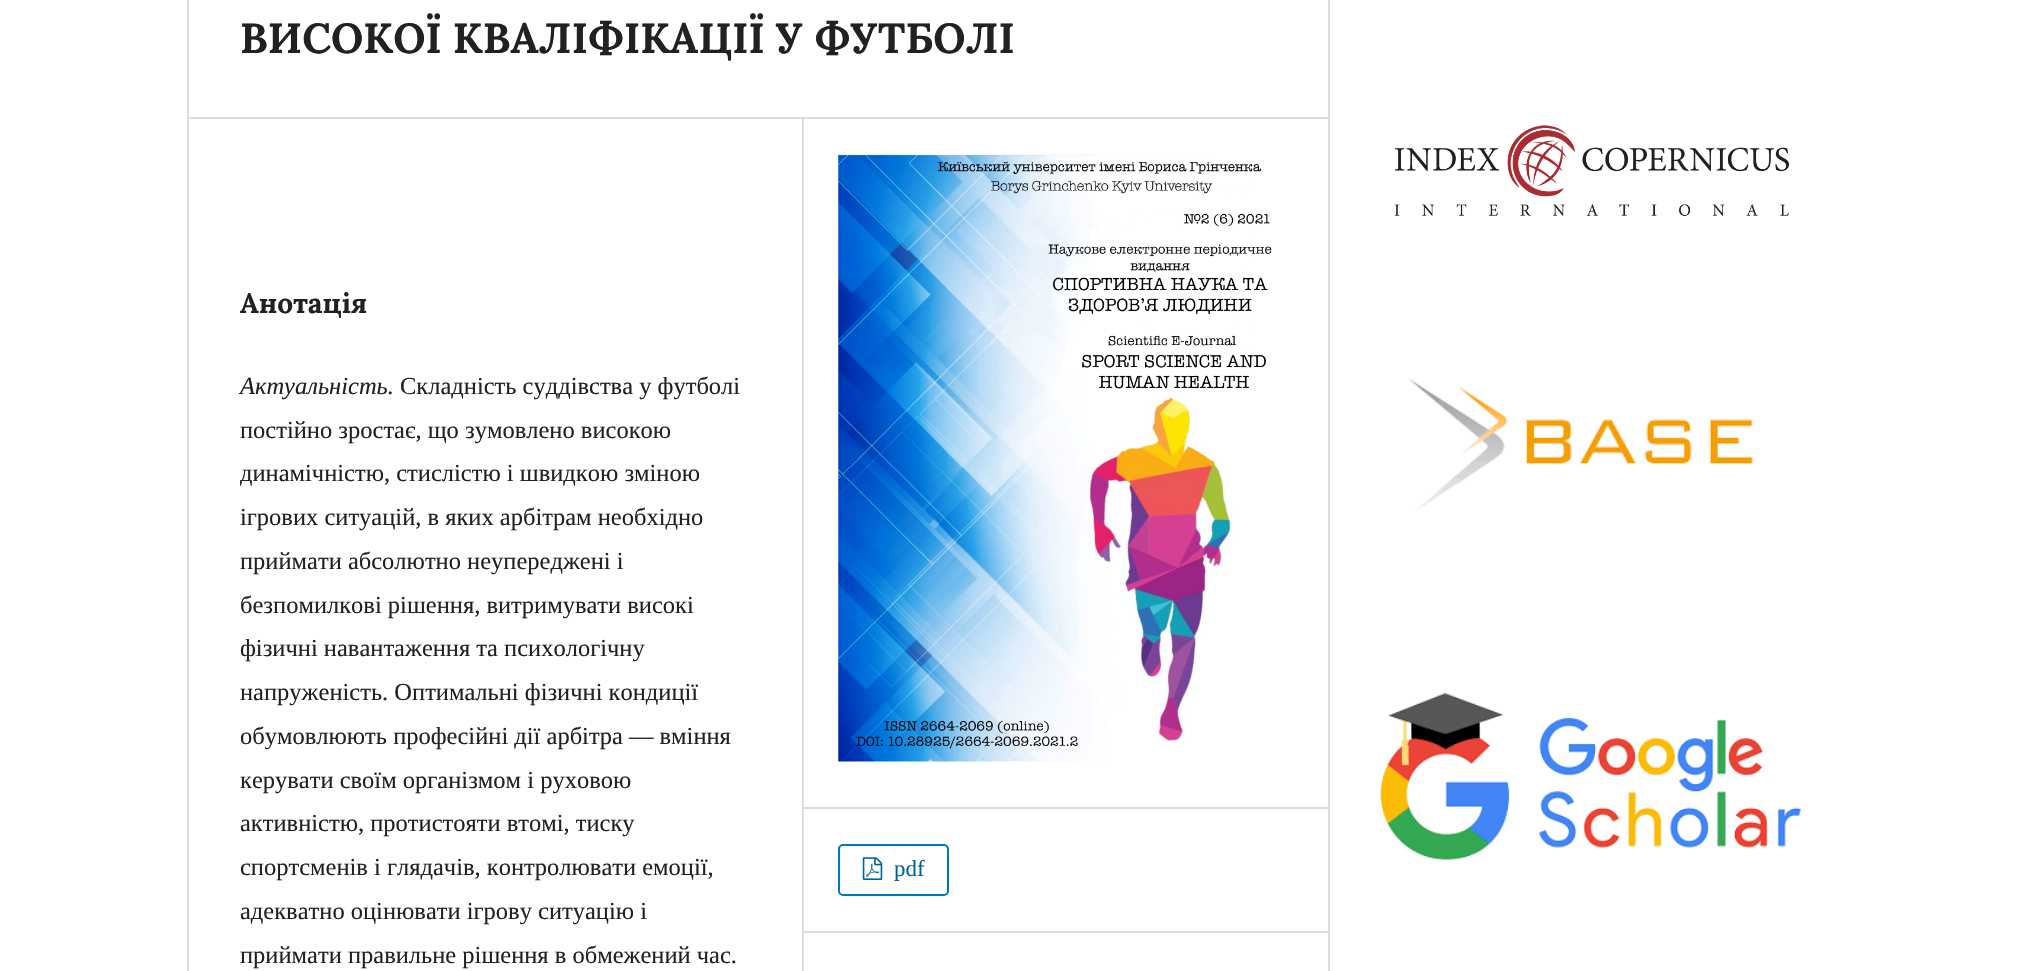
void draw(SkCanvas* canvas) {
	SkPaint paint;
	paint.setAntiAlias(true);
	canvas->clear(0xffffffff);
	paint.setColor(0xffdddddd);
	canvas->drawRect(SkRect::MakeXYWH(187, 117, 1141, 2), paint);
	canvas->drawRect(SkRect::MakeXYWH(187, 0, 2, 971), paint);
	SkFont f1(fontMgr->matchFamilyStyle("Lora", SkFontStyle::Bold()), 42);
	f1.setSubpixel(true);
	paint.setColor(0xff212121);
	canvas->drawString("ВИСОКОЇ КВАЛІФІКАЦІЇ У ФУТБОЛІ", 240, 53, f1, paint);
	paint.setColor(0xffdddddd);
	canvas->drawRect(SkRect::MakeXYWH(802, 119, 2, 852), paint);
	SkFont f2(fontMgr->matchFamilyStyle("Lora", SkFontStyle::Bold()), 28);
	f2.setSubpixel(true);
	paint.setColor(0xff212121);
	canvas->drawString("Анотація", 240, 313, f2, paint);
	SkFont f3(fontMgr->matchFamilyStyle("Liberation Serif", SkFontStyle::Italic()), 24.5);
	f3.setSubpixel(true);
	canvas->drawString("Актуальність.", 240, 394, f3, paint);
	SkFont f4(fontMgr->matchFamilyStyle("Liberation Serif", SkFontStyle::Normal()), 24.5);
	f4.setSubpixel(true);
	canvas->drawString("Складність суддівства у футболі", 400, 394, f4, paint);
	canvas->drawString("постійно зростає, що зумовлено високою", 240, 438, f4, paint);
	canvas->drawString("динамічністю, стислістю і швидкою зміною", 240, 481, f4, paint);
	canvas->drawString("ігрових ситуацій, в яких арбітрам необхідно", 240, 525, f4, paint);
	canvas->drawString("приймати абсолютно неупереджені і", 240, 569, f4, paint);
	canvas->drawString("безпомилкові рішення, витримувати високі", 240, 613, f4, paint);
	canvas->drawString("фізичні навантаження та психологічну", 240, 656, f4, paint);
	canvas->drawString("напруженість. Оптимальні фізичні кондиції", 240, 700, f4, paint);
	canvas->drawString("обумовлюють професійні дії арбітра — вміння", 240, 744, f4, paint);
	canvas->drawString("керувати своїм організмом і руховою", 240, 788, f4, paint);
	canvas->drawString("активністю, протистояти втомі, тиску", 240, 831, f4, paint);
	canvas->drawString("спортсменів і глядачів, контролювати емоції,", 240, 875, f4, paint);
	canvas->drawString("адекватно оцінювати ігрову ситуацію і", 240, 919, f4, paint);
	canvas->drawString("приймати правильне рішення в обмежений час.", 240, 963, f4, paint);
	paint.setColor(0xffdddddd);
	canvas->drawRect(SkRect::MakeXYWH(803, 807, 525, 2), paint);
	canvas->drawImageRect(SkImages::DeferredFromEncodedData(SkData::MakeFromFileName("img1.png")), SkRect::MakeXYWH(838, 154, 434, 608), SkSamplingOptions());
	canvas->drawRect(SkRect::MakeXYWH(803, 931, 525, 2), paint);
	paint.setStroke(true);
	paint.setStrokeWidth(2);
	paint.setColor(0xff007ab2);
	canvas->drawRoundRect(SkRect::MakeXYWH(839, 845, 109, 50), 4, 4, paint);
	canvas->drawImageRect(SkImages::DeferredFromEncodedData(SkData::MakeFromFileName("img2.png")), SkRect::MakeXYWH(862, 857, 21, 23), SkSamplingOptions());
	SkFont f5(fontMgr->matchFamilyStyle("Liberation Serif", SkFontStyle::Normal()), 23);
	f5.setSubpixel(true);
	paint.setStroke(false);
	paint.setColor(0xff006699);
	canvas->drawString("pdf", 894, 876, f5, paint);
	paint.setColor(0xffdddddd);
	canvas->drawRect(SkRect::MakeXYWH(1328, 0, 2, 971), paint);
	canvas->drawImageRect(SkImages::DeferredFromEncodedData(SkData::MakeFromFileName("img3.png")), SkRect::MakeXYWH(1394, 125, 395, 91), SkSamplingOptions());
	canvas->drawImageRect(SkImages::DeferredFromEncodedData(SkData::MakeFromFileName("img4.png")), SkRect::MakeXYWH(1408, 378, 346, 134), SkSamplingOptions());
	canvas->drawImageRect(SkImages::DeferredFromEncodedData(SkData::MakeFromFileName("img5.png")), SkRect::MakeXYWH(1380, 693, 421, 167), SkSamplingOptions());
}
